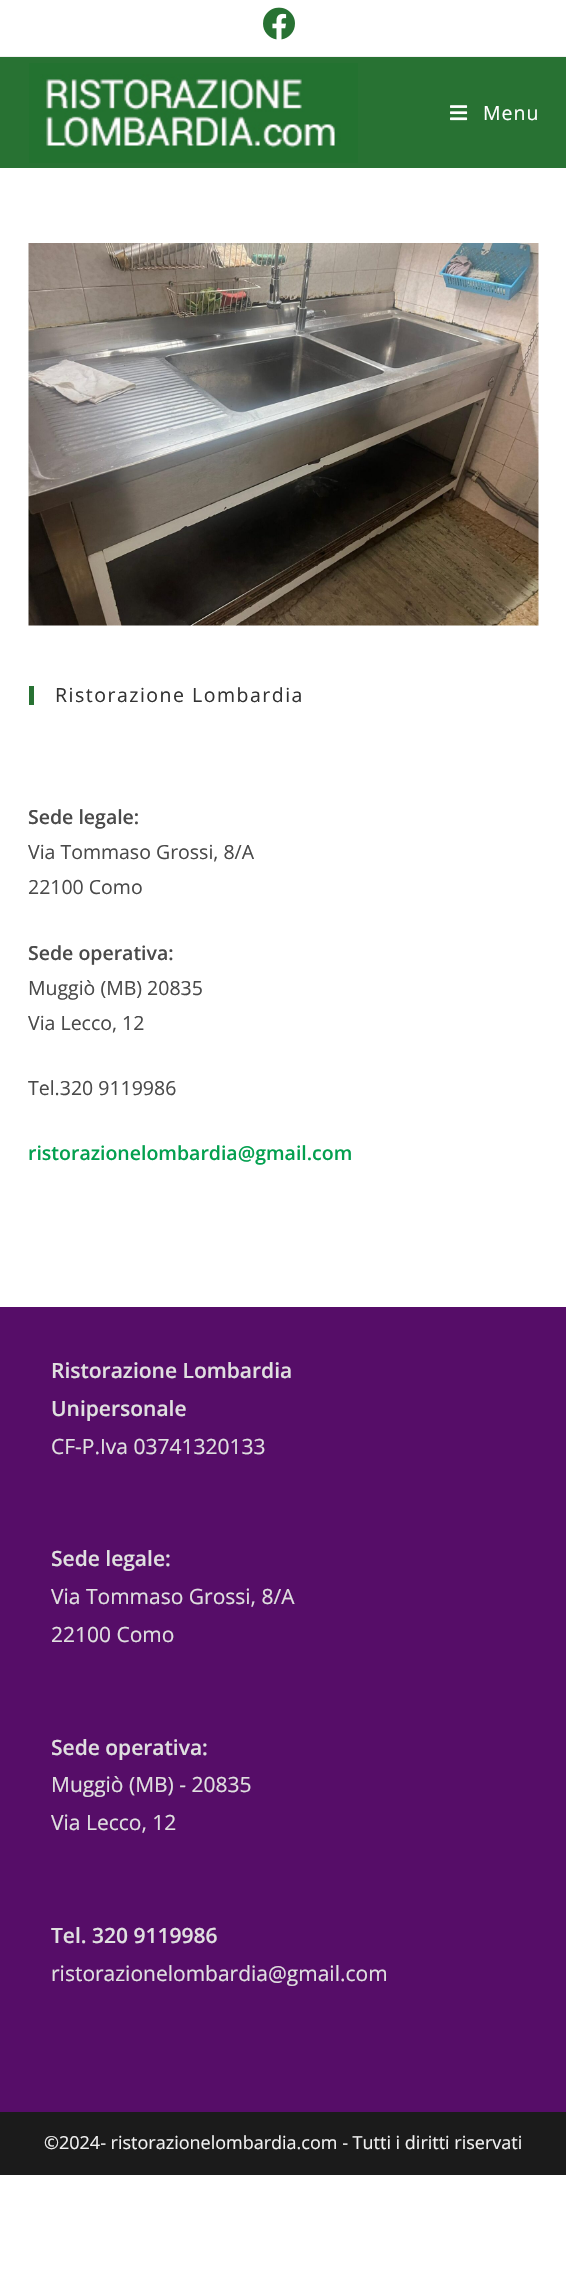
void draw(SkCanvas* canvas) {
	SkPaint paint;
	paint.setAntiAlias(true);
	auto spacedText = [&](const char* s, float x, float y, const SkFont& font, const SkPaint& ink, float letter, float word) {
		std::vector<SkGlyphID> glyphs(font.countText(s, strlen(s), SkTextEncoding::kUTF8));
		std::vector<float> xs(glyphs.size());
		font.textToGlyphs(s, strlen(s), SkTextEncoding::kUTF8, glyphs);
		font.getXPos(glyphs, xs, x);
		float extra = 0;
		for (size_t i = 0; i < glyphs.size(); i++) {
			xs[i] += extra;
			extra += letter + word * (glyphs[i] == font.unicharToGlyph(' '));
		}
		canvas->drawTextBlob(SkTextBlob::MakeFromPosHGlyphs(glyphs, xs, y, font), 0, 0, ink);
	};
	canvas->clear(0xffffffff);
	paint.setColor(0xfff1f1f1);
	canvas->drawRect(SkRect::MakeXYWH(0, 56, 566, 1), paint);
	canvas->drawImageRect(SkImages::DeferredFromEncodedData(SkData::MakeFromFileName("img1.png")), SkRect::MakeXYWH(263, 7, 32, 33), SkSamplingOptions());
	paint.setColor(0xff287233);
	canvas->drawRect(SkRect::MakeXYWH(0, 57, 566, 111), paint);
	canvas->drawImageRect(SkImages::DeferredFromEncodedData(SkData::MakeFromFileName("img2.png")), SkRect::MakeXYWH(29, 63, 329, 100), SkSamplingOptions());
	canvas->drawImageRect(SkImages::DeferredFromEncodedData(SkData::MakeFromFileName("img3.png")), SkRect::MakeXYWH(450, 105, 18, 16), SkSamplingOptions());
	SkFont f1(fontMgr->matchFamilyStyle("Open Sans", SkFontStyle::Normal()), 19.5);
	f1.setSubpixel(true);
	paint.setColor(0xffffffff);
	spacedText("Menu", 483, 120, f1, paint, 1, 0);
	canvas->drawImageRect(SkImages::DeferredFromEncodedData(SkData::MakeFromFileName("img4.png")), SkRect::MakeXYWH(28, 243, 511, 383), SkSamplingOptions());
	paint.setColor(0xff287233);
	canvas->drawRect(SkRect::MakeXYWH(29, 686, 5, 19), paint);
	paint.setColor(0xff333333);
	spacedText("Ristorazione Lombardia", 55, 702, f1, paint, 1.5, 0);
	SkFont f2(fontMgr->matchFamilyStyle("Open Sans", SkFontStyle(600, SkFontStyle::kNormal_Width, SkFontStyle::kUpright_Slant)), 19.5);
	f2.setSubpixel(true);
	paint.setColor(0xff4a4a4a);
	canvas->drawString("Sede legale:", 28, 824, f2, paint);
	canvas->drawString("Via Tommaso Grossi, 8/A", 28, 859, f1, paint);
	canvas->drawString("22100 Como", 28, 894, f1, paint);
	canvas->drawString("Sede operativa:", 28, 960, f2, paint);
	canvas->drawString("Muggiò (MB) 20835", 28, 995, f1, paint);
	canvas->drawString("Via Lecco, 12", 28, 1030, f1, paint);
	canvas->drawString("Tel.320 9119986", 28, 1095, f1, paint);
	paint.setColor(0xff03a04f);
	canvas->drawString("ristorazionelombardia@gmail.com", 28, 1160, f2, paint);
	paint.setColor(0xff560d68);
	canvas->drawRect(SkRect::MakeXYWH(0, 1307, 566, 805), paint);
	SkFont f3(fontMgr->matchFamilyStyle("Open Sans", SkFontStyle(600, SkFontStyle::kNormal_Width, SkFontStyle::kUpright_Slant)), 21);
	f3.setSubpixel(true);
	paint.setColor(0xffe0e0e0);
	canvas->drawString("Ristorazione Lombardia", 51, 1378, f3, paint);
	canvas->drawString("Unipersonale", 51, 1416, f3, paint);
	SkFont f4(fontMgr->matchFamilyStyle("Open Sans", SkFontStyle::Normal()), 21);
	f4.setSubpixel(true);
	canvas->drawString("CF-P.Iva 03741320133", 51, 1454, f4, paint);
	canvas->drawString("Sede legale:", 51, 1566, f3, paint);
	canvas->drawString("Via Tommaso Grossi, 8/A", 51, 1604, f4, paint);
	canvas->drawString("22100 Como", 51, 1642, f4, paint);
	canvas->drawString("Sede operativa:", 51, 1755, f3, paint);
	canvas->drawString("Muggiò (MB) - 20835", 51, 1792, f4, paint);
	canvas->drawString("Via Lecco, 12", 51, 1830, f4, paint);
	canvas->drawString("Tel. 320 9119986", 51, 1943, f3, paint);
	canvas->drawString("ristorazionelombardia@gmail.com", 51, 1981, f4, paint);
	paint.setColor(0xff1b1b1b);
	canvas->drawRect(SkRect::MakeXYWH(0, 2112, 566, 63), paint);
	SkFont f5(fontMgr->matchFamilyStyle("Open Sans", SkFontStyle::Normal()), 18);
	f5.setSubpixel(true);
	paint.setColor(0xfff2f2f2);
	canvas->drawString("©2024- ristorazionelombardia.com - Tutti i diritti riservati", 44, 2149, f5, paint);
}
